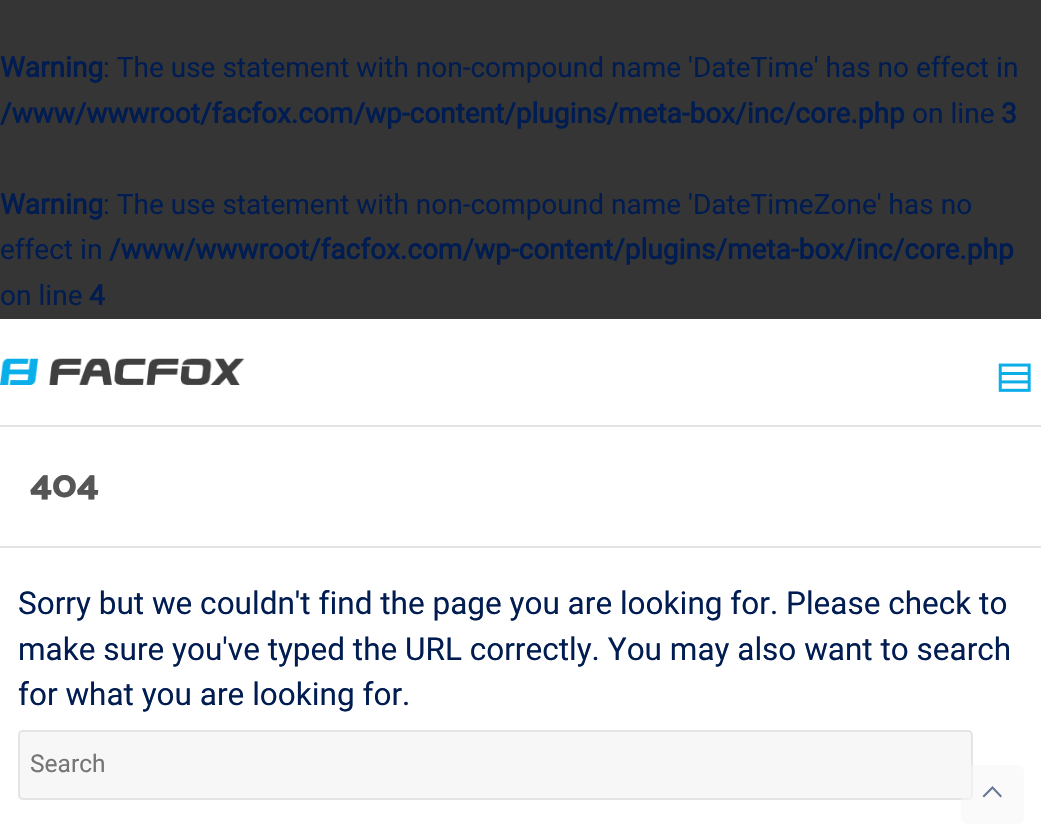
void draw(SkCanvas* canvas) {
	SkPaint paint;
	paint.setAntiAlias(true);
	auto svgPath = [&](const char* data, bool evenOdd = false) {
		SkPath result = *SkParsePath::FromSVGString(data);
		if (evenOdd) result.setFillType(SkPathFillType::kEvenOdd);
		return result;
	};
	canvas->clear(0xff353535);
	SkFont f1(fontMgr->matchFamilyStyle("Heebo", SkFontStyle::Bold()), 28);
	f1.setSubpixel(true);
	paint.setColor(0xff001c51);
	canvas->drawString("Warning", 0, 77, f1, paint);
	SkFont f2(fontMgr->matchFamilyStyle("Heebo", SkFontStyle::Normal()), 28);
	f2.setSubpixel(true);
	canvas->drawString(": The use statement with non-compound name 'DateTime' has no effect in", 103, 77, f2, paint);
	canvas->drawString("/www/wwwroot/facfox.com/wp-content/plugins/meta-box/inc/core.php", 0, 123, f1, paint);
	canvas->drawString("on line", 912, 123, f2, paint);
	canvas->drawString("3", 1001, 123, f1, paint);
	canvas->drawString("Warning", 0, 214, f1, paint);
	canvas->drawString(": The use statement with non-compound name 'DateTimeZone' has no", 103, 214, f2, paint);
	canvas->drawString("effect in", 0, 259, f2, paint);
	canvas->drawString("/www/wwwroot/facfox.com/wp-content/plugins/meta-box/inc/core.php", 109, 259, f1, paint);
	canvas->drawString("on line", 0, 305, f2, paint);
	canvas->drawString("4", 89, 305, f1, paint);
	paint.setColor(0xffe4e4e4);
	canvas->drawRect(SkRect::MakeXYWH(0, 425, 1041, 2), paint);
	paint.setColor(0xffffffff);
	canvas->drawRect(SkRect::MakeXYWH(0, 319, 1041, 106), paint);
	canvas->drawImageRect(SkImages::DeferredFromEncodedData(SkData::MakeFromFileName("img1.png")), SkRect::MakeXYWH(0, 358, 245, 27), SkSamplingOptions());
	canvas->drawImageRect(SkImages::DeferredFromEncodedData(SkData::MakeFromFileName("img2.png")), SkRect::MakeXYWH(998, 363, 33, 29), SkSamplingOptions());
	canvas->drawRect(SkRect::MakeXYWH(0, 427, 1041, 397), paint);
	paint.setColor(0xffe4e4e4);
	canvas->drawRect(SkRect::MakeXYWH(0, 546, 1041, 2), paint);
	SkFont f3(fontMgr->matchFamilyStyle("Catamaran", SkFontStyle(800, SkFontStyle::kNormal_Width, SkFontStyle::kUpright_Slant)), 38);
	f3.setSubpixel(true);
	paint.setColor(0xff565656);
	canvas->drawString("404", 30, 497, f3, paint);
	SkFont f4(fontMgr->matchFamilyStyle("Heebo", SkFontStyle::Normal()), 31.5);
	f4.setSubpixel(true);
	paint.setColor(0xff001c51);
	canvas->drawString("Sorry but we couldn't find the page you are looking for. Please check to", 18, 614, f4, paint);
	canvas->drawString("make sure you've typed the URL correctly. You may also want to search", 18, 660, f4, paint);
	canvas->drawString("for what you are looking for.", 18, 705, f4, paint);
	paint.setColor(0xfff7f7f7);
	canvas->drawRoundRect(SkRect::MakeXYWH(19, 731, 953, 68), 4, 4, paint);
	paint.setStroke(true);
	paint.setStrokeWidth(2);
	paint.setColor(0xffe4e4e4);
	canvas->drawRoundRect(SkRect::MakeXYWH(19, 731, 953, 68), 4, 4, paint);
	SkFont f5(fontMgr->matchFamilyStyle("Heebo", SkFontStyle::Normal()), 24.5);
	f5.setSubpixel(true);
	paint.setStroke(false);
	paint.setColor(0xff757575);
	canvas->drawString("Search", 30, 772, f5, paint);
	paint.setColor(0x99f7f7f7);
	canvas->drawRoundRect(SkRect::MakeXYWH(961, 765, 63, 59), 7, 7, paint);
	paint.setColor(0xff667797);
	canvas->drawPath(svgPath("M1000.5 797.5L992.5 789L984 797.5L982.5 796L992.5 786L1002 796Z"), paint);
}
